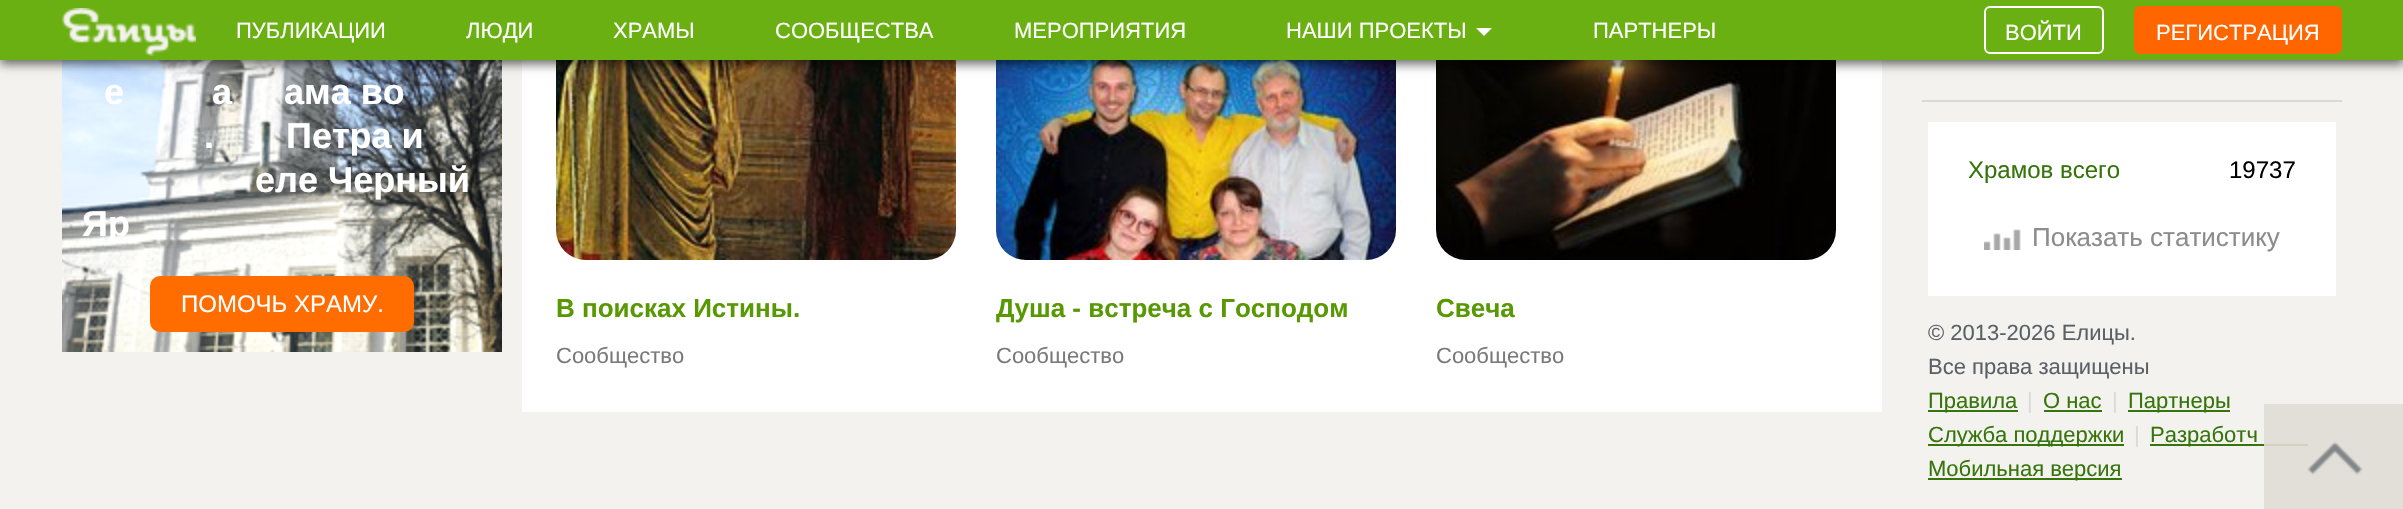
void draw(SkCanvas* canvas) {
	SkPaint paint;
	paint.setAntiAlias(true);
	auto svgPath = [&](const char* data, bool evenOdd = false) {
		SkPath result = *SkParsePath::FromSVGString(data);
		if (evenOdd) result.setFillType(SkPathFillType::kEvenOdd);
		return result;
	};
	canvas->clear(0xfff3f2ef);
	canvas->drawImageRect(SkImages::DeferredFromEncodedData(SkData::MakeFromFileName("img2.png")), SkRect::MakeXYWH(62, 60, 440, 292), SkSamplingOptions());
	paint.setColor(0xffffffff);
	canvas->drawRect(SkRect::MakeXYWH(522, 60, 1360, 352), paint);
	canvas->drawImageRect(SkImages::DeferredFromEncodedData(SkData::MakeFromFileName("img3.png")), SkRect::MakeXYWH(556, 60, 400, 200), SkSamplingOptions());
	canvas->drawImageRect(SkImages::DeferredFromEncodedData(SkData::MakeFromFileName("img4.png")), SkRect::MakeXYWH(996, 60, 400, 200), SkSamplingOptions());
	canvas->drawImageRect(SkImages::DeferredFromEncodedData(SkData::MakeFromFileName("img5.png")), SkRect::MakeXYWH(1436, 60, 400, 200), SkSamplingOptions());
	paint.setColor(0x99000000);
	paint.setMaskFilter(SkMaskFilter::MakeBlur(kNormal_SkBlurStyle, 5));
	canvas->drawRect(SkRect::MakeXYWH(0, 4, 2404, 60), paint);
	paint.setMaskFilter(nullptr);
	paint.setColor(0xff6bb012);
	canvas->drawRect(SkRect::MakeXYWH(0, 0, 2403, 60), paint);
	canvas->drawImageRect(SkImages::DeferredFromEncodedData(SkData::MakeFromFileName("img1.png")), SkRect::MakeXYWH(62, 8, 134, 48), SkSamplingOptions());
	SkFont f1(fontMgr->matchFamilyStyle("Liberation Sans", SkFontStyle::Normal()), 22);
	f1.setSubpixel(true);
	paint.setColor(0xffffffff);
	canvas->drawString("ПУБЛИКАЦИИ", 236, 38, f1, paint);
	canvas->drawString("ЛЮДИ", 466, 38, f1, paint);
	canvas->drawString("ХРАМЫ", 613, 38, f1, paint);
	canvas->drawString("СООБЩЕСТВА", 775, 38, f1, paint);
	canvas->drawString("МЕРОПРИЯТИЯ", 1014, 38, f1, paint);
	canvas->drawString("НАШИ ПРОЕКТЫ", 1286, 38, f1, paint);
	canvas->drawPath(svgPath("M1476 28H1492L1484 36Z"), paint);
	canvas->drawString("ПАРТНЕРЫ", 1593, 38, f1, paint);
	paint.setStroke(true);
	paint.setStrokeWidth(2);
	canvas->drawRoundRect(SkRect::MakeXYWH(1985, 7, 118, 46), 5, 5, paint);
	paint.setStroke(false);
	canvas->drawString("ВОЙТИ", 2005, 40, f1, paint);
	paint.setColor(0xffff6600);
	canvas->drawRoundRect(SkRect::MakeXYWH(2135, 7, 206, 46), 5, 5, paint);
	paint.setStroke(true);
	canvas->drawRoundRect(SkRect::MakeXYWH(2135, 7, 206, 46), 5, 5, paint);
	paint.setStroke(false);
	paint.setColor(0xffffffff);
	canvas->drawString("РЕГИСТРАЦИЯ", 2156, 40, f1, paint);
	SkFont f2(fontMgr->matchFamilyStyle("Liberation Sans", SkFontStyle::Bold()), 36);
	f2.setSubpixel(true);
	canvas->drawString("е", 104, 104, f2, paint);
	canvas->drawString("а", 212, 104, f2, paint);
	canvas->drawString("ама во", 284, 104, f2, paint);
	canvas->drawString(".", 204, 148, f2, paint);
	canvas->drawString("Петра и", 286, 148, f2, paint);
	canvas->drawString("еле Черный", 255, 192, f2, paint);
	canvas->drawString("Яр", 82, 236, f2, paint);
	paint.setColor(0xffff6c00);
	canvas->drawRoundRect(SkRect::MakeXYWH(150, 276, 264, 56), 10, 10, paint);
	SkFont f3(fontMgr->matchFamilyStyle("Liberation Sans", SkFontStyle::Normal()), 24);
	f3.setSubpixel(true);
	paint.setColor(0xffffffff);
	canvas->drawString("ПОМОЧЬ ХРАМУ.", 181, 312, f3, paint);
	SkFont f4(fontMgr->matchFamilyStyle("Liberation Sans", SkFontStyle::Bold()), 26);
	f4.setSubpixel(true);
	paint.setColor(0xff579803);
	canvas->drawString("В поисках Истины.", 556, 317, f4, paint);
	paint.setColor(0xff7a7a7a);
	canvas->drawString("Сообщество", 556, 363, f1, paint);
	paint.setColor(0xff579803);
	canvas->drawString("Душа - встреча с Господом", 996, 317, f4, paint);
	paint.setColor(0xff7a7a7a);
	canvas->drawString("Сообщество", 996, 363, f1, paint);
	paint.setColor(0xff579803);
	canvas->drawString("Свеча", 1436, 317, f4, paint);
	paint.setColor(0xff7a7a7a);
	canvas->drawString("Сообщество", 1436, 363, f1, paint);
	paint.setColor(0xffdad9d7);
	canvas->drawRect(SkRect::MakeXYWH(1922, 100, 420, 2), paint);
	paint.setColor(0xffffffff);
	canvas->drawRect(SkRect::MakeXYWH(1928, 122, 408, 174), paint);
	paint.setColor(0xff36750c);
	canvas->drawString("Храмов всего", 1968, 178, f3, paint);
	paint.setColor(0xff000000);
	canvas->drawString("19737", 2229, 178, f3, paint);
	canvas->drawImageRect(SkImages::DeferredFromEncodedData(SkData::MakeFromFileName("img6.png")), SkRect::MakeXYWH(1984, 229, 37, 21), SkSamplingOptions());
	SkFont f5(fontMgr->matchFamilyStyle("Liberation Sans", SkFontStyle::Normal()), 26);
	f5.setSubpixel(true);
	paint.setColor(0xff8c8c8c);
	canvas->drawString("Показать статистику", 2032, 246, f5, paint);
	paint.setColor(0xff5a6166);
	canvas->drawString("© 2013-2026 Елицы.", 1928, 340, f1, paint);
	canvas->drawString("Все права защищены", 1928, 374, f1, paint);
	paint.setColor(0xff36750c);
	canvas->drawRect(SkRect::MakeXYWH(1928, 410, 90, 2), paint);
	canvas->drawString("Правила", 1928, 408, f1, paint);
	paint.setColor(0xffdad9d6);
	canvas->drawString("|", 2027, 408, f1, paint);
	paint.setColor(0xff36750c);
	canvas->drawString("О нас", 2043, 408, f1, paint);
	canvas->drawRect(SkRect::MakeXYWH(2044, 410, 58, 2), paint);
	paint.setColor(0xffdad9d6);
	canvas->drawString("|", 2112, 408, f1, paint);
	paint.setColor(0xff36750c);
	canvas->drawRect(SkRect::MakeXYWH(2128, 410, 102, 2), paint);
	canvas->drawString("Партнеры", 2128, 408, f1, paint);
	canvas->drawRect(SkRect::MakeXYWH(1928, 444, 196, 2), paint);
	canvas->drawString("Служба поддержки", 1928, 442, f1, paint);
	paint.setColor(0xffdad9d6);
	canvas->drawString("|", 2134, 442, f1, paint);
	paint.setColor(0xff36750c);
	canvas->drawRect(SkRect::MakeXYWH(2150, 444, 158, 2), paint);
	canvas->drawString("Разработч", 2150, 442, f1, paint);
	canvas->drawRect(SkRect::MakeXYWH(1928, 478, 194, 2), paint);
	canvas->drawString("Мобильная версия", 1928, 476, f1, paint);
	canvas->drawImageRect(SkImages::DeferredFromEncodedData(SkData::MakeFromFileName("img7.png")), SkRect::MakeXYWH(2264, 404, 139, 105), SkSamplingOptions());
}
